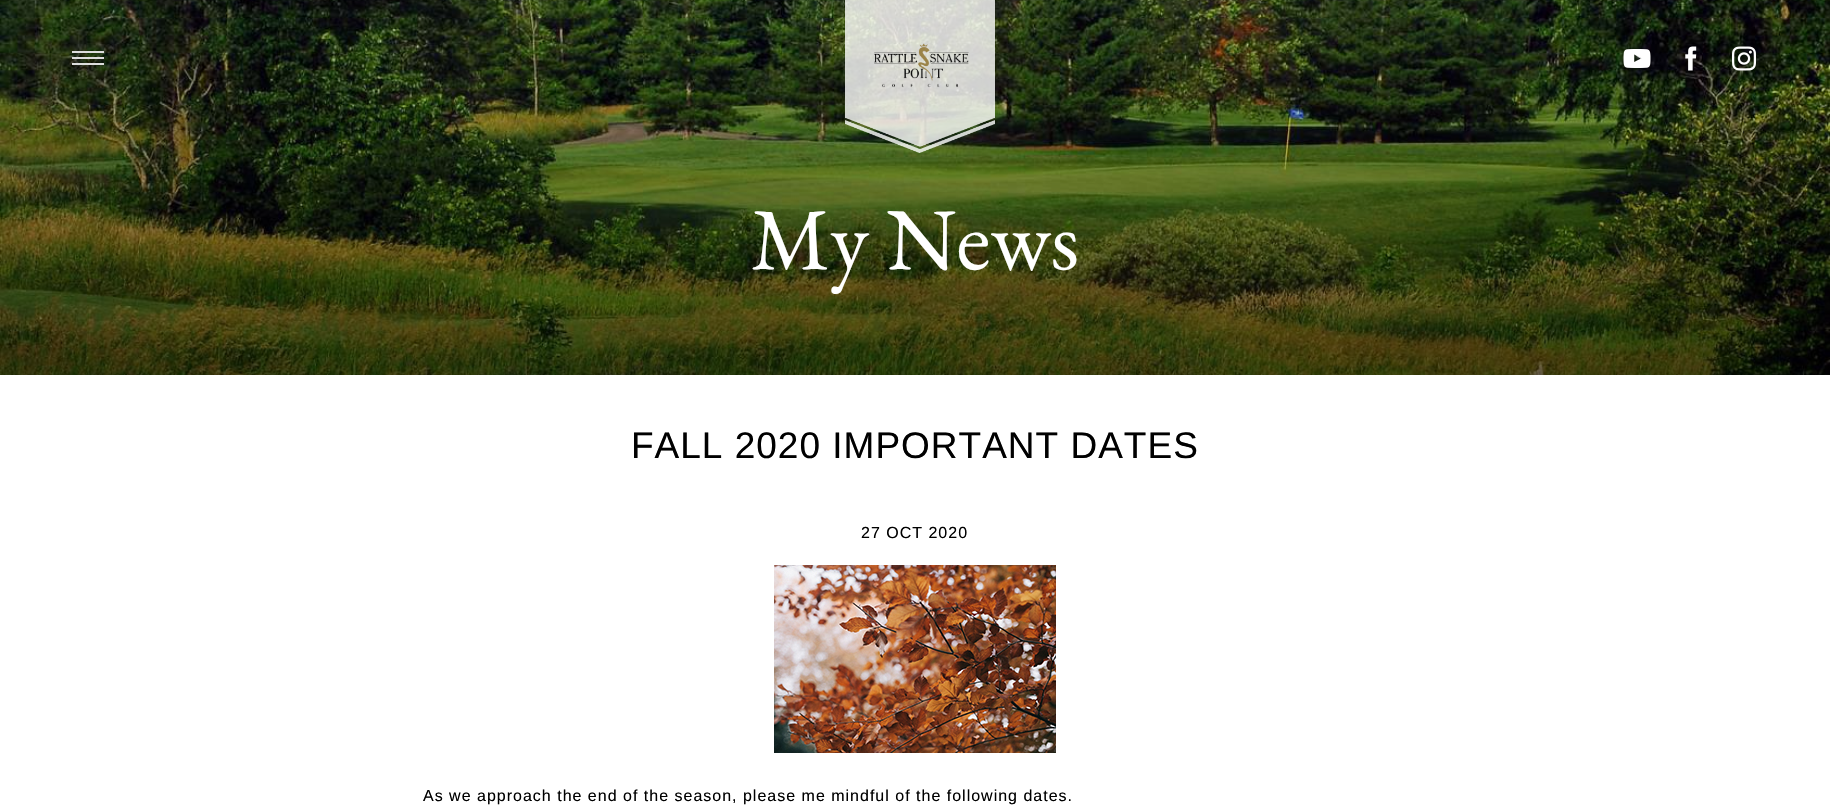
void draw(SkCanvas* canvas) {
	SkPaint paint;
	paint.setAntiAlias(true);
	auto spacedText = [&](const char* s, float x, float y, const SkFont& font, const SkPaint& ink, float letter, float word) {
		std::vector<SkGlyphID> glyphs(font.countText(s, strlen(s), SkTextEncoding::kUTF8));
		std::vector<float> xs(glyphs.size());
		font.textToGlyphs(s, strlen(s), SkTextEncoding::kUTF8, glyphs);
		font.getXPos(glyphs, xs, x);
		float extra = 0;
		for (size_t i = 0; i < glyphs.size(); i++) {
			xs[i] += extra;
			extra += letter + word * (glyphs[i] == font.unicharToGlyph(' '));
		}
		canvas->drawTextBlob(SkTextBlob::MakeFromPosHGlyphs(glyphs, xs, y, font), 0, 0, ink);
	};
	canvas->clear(0xffffffff);
	canvas->drawImageRect(SkImages::DeferredFromEncodedData(SkData::MakeFromFileName("img4.png")), SkRect::MakeXYWH(0, 0, 1830, 375), SkSamplingOptions());
	paint.setColor(0xffdddddd);
	canvas->drawRect(SkRect::MakeXYWH(72, 51, 32, 2), paint);
	canvas->drawRect(SkRect::MakeXYWH(72, 57, 32, 2), paint);
	canvas->drawRect(SkRect::MakeXYWH(72, 63, 32, 2), paint);
	canvas->drawImageRect(SkImages::DeferredFromEncodedData(SkData::MakeFromFileName("img1.png")), SkRect::MakeXYWH(1623, 49, 28, 19), SkSamplingOptions());
	canvas->drawImageRect(SkImages::DeferredFromEncodedData(SkData::MakeFromFileName("img2.png")), SkRect::MakeXYWH(1685, 46, 12, 25), SkSamplingOptions());
	canvas->drawImageRect(SkImages::DeferredFromEncodedData(SkData::MakeFromFileName("img3.png")), SkRect::MakeXYWH(1732, 46, 24, 25), SkSamplingOptions());
	canvas->drawImageRect(SkImages::DeferredFromEncodedData(SkData::MakeFromFileName("img5.png")), SkRect::MakeXYWH(845, 0, 150, 153), SkSamplingOptions());
	canvas->drawImageRect(SkImages::DeferredFromEncodedData(SkData::MakeFromFileName("img6.png")), SkRect::MakeXYWH(874, 43, 95, 45), SkSamplingOptions());
	SkFont f1(fontMgr->matchFamilyStyle("EB Garamond", SkFontStyle::Normal()), 88);
	f1.setSubpixel(true);
	paint.setColor(0xffffffff);
	canvas->drawString("My News", 751, 269, f1, paint);
	SkFont f2(fontMgr->matchFamilyStyle("Liberation Sans", SkFontStyle::Normal()), 37);
	f2.setSubpixel(true);
	paint.setColor(0xff000000);
	spacedText("FALL 2020 IMPORTANT DATES", 631, 458, f2, paint, 1, 0);
	SkFont f3(fontMgr->matchFamilyStyle("Liberation Sans", SkFontStyle::Normal()), 16);
	f3.setSubpixel(true);
	spacedText("27 OCT 2020", 861, 538, f3, paint, 1, 0);
	canvas->drawImageRect(SkImages::DeferredFromEncodedData(SkData::MakeFromFileName("img7.png")), SkRect::MakeXYWH(774, 565, 282, 188), SkSamplingOptions());
	spacedText("As we approach the end of the season, please me mindful of the following dates.", 423, 801, f3, paint, 1, 0);
}
